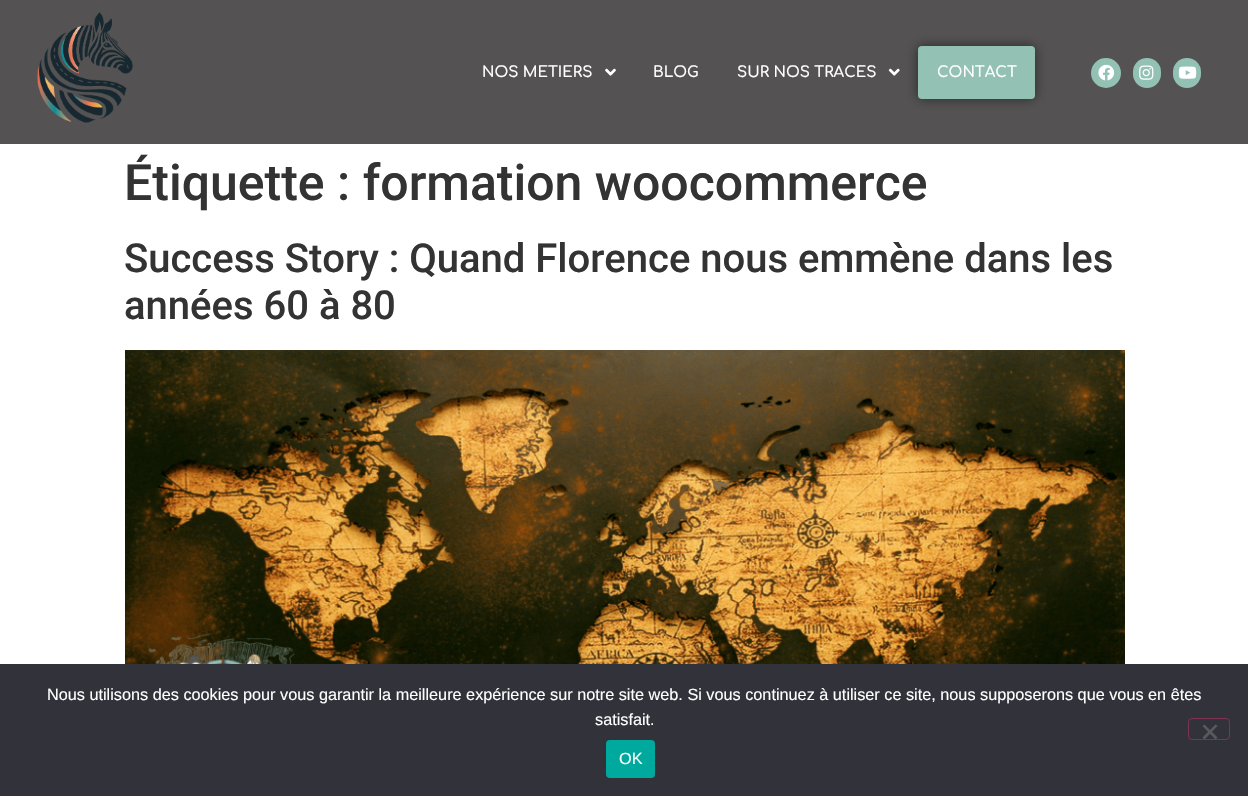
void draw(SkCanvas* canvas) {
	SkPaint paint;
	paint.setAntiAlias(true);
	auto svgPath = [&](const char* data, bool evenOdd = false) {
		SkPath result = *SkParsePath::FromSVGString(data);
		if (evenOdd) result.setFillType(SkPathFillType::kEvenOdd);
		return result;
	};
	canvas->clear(0xffffffff);
	paint.setColor(0xff545252);
	canvas->drawRect(SkRect::MakeXYWH(0, 0, 1248, 144), paint);
	canvas->drawImageRect(SkImages::DeferredFromEncodedData(SkData::MakeFromFileName("img1.png")), SkRect::MakeXYWH(37, 12, 96, 111), SkSamplingOptions());
	SkFont f1(fontMgr->matchFamilyStyle("Comfortaa", SkFontStyle(600, SkFontStyle::kNormal_Width, SkFontStyle::kUpright_Slant)), 15);
	f1.setSubpixel(true);
	paint.setColor(0xffffffff);
	canvas->drawString("NOS METIERS", 482, 77, f1, paint);
	canvas->drawImageRect(SkImages::DeferredFromEncodedData(SkData::MakeFromFileName("img2.png")), SkRect::MakeXYWH(605, 68, 11, 8), SkSamplingOptions());
	canvas->drawString("BLOG", 653, 77, f1, paint);
	canvas->drawString("SUR NOS TRACES", 737, 77, f1, paint);
	canvas->drawImageRect(SkImages::DeferredFromEncodedData(SkData::MakeFromFileName("img3.png")), SkRect::MakeXYWH(888, 68, 12, 8), SkSamplingOptions());
	paint.setColor(0x80000000);
	paint.setMaskFilter(SkMaskFilter::MakeBlur(kNormal_SkBlurStyle, 6));
	canvas->drawRoundRect(SkRect::MakeXYWH(918, 46, 117, 53), 4, 4, paint);
	paint.setMaskFilter(nullptr);
	paint.setColor(0xff93c2b5);
	canvas->drawRoundRect(SkRect::MakeXYWH(918, 46, 117, 53), 4, 4, paint);
	paint.setColor(0xffffffff);
	canvas->drawString("CONTACT", 937, 77, f1, paint);
	paint.setColor(0xff93c2b5);
	canvas->drawCircle(1106, 73, 15, paint);
	canvas->drawImageRect(SkImages::DeferredFromEncodedData(SkData::MakeFromFileName("img4.png")), SkRect::MakeXYWH(1098, 64, 17, 17), SkSamplingOptions());
	canvas->drawRoundRect(SkRect::MakeXYWH(1133, 58, 28, 30), 14, 14, paint);
	canvas->drawImageRect(SkImages::DeferredFromEncodedData(SkData::MakeFromFileName("img5.png")), SkRect::MakeXYWH(1139, 65, 15, 15), SkSamplingOptions());
	canvas->drawRoundRect(SkRect::MakeXYWH(1173, 58, 28, 30), 14, 14, paint);
	canvas->drawImageRect(SkImages::DeferredFromEncodedData(SkData::MakeFromFileName("img6.png")), SkRect::MakeXYWH(1178, 66, 19, 13), SkSamplingOptions());
	SkFont f2(fontMgr->matchFamilyStyle("Roboto", SkFontStyle(500, SkFontStyle::kNormal_Width, SkFontStyle::kUpright_Slant)), 50);
	f2.setSubpixel(true);
	paint.setColor(0xff333333);
	canvas->drawString("Étiquette : formation woocommerce", 124, 200, f2, paint);
	SkFont f3(fontMgr->matchFamilyStyle("Roboto", SkFontStyle(500, SkFontStyle::kNormal_Width, SkFontStyle::kUpright_Slant)), 40);
	f3.setSubpixel(true);
	canvas->drawString("Success Story : Quand Florence nous emmène dans les", 124, 272, f3, paint);
	canvas->drawString("années 60 à 80", 124, 319, f3, paint);
	canvas->drawImageRect(SkImages::DeferredFromEncodedData(SkData::MakeFromFileName("img7.png")), SkRect::MakeXYWH(125, 350, 1000, 314), SkSamplingOptions());
	paint.setColor(0xff32323a);
	canvas->drawRect(SkRect::MakeXYWH(0, 664, 1248, 132), paint);
	SkFont f4(fontMgr->matchFamilyStyle("Liberation Sans", SkFontStyle::Normal()), 16.25);
	f4.setSubpixel(true);
	paint.setColor(0xffffffff);
	canvas->drawString("Nous utilisons des cookies pour vous garantir la meilleure expérience sur notre site web. Si vous continuez à utiliser ce site, nous supposerons que vous en êtes", 47, 700, f4, paint);
	canvas->drawString("satisfait.", 595, 725, f4, paint);
	paint.setStroke(true);
	paint.setStrokeWidth(1);
	paint.setColor(0xff7f3350);
	canvas->drawRoundRect(SkRect::MakeXYWH(1188.5, 718.5, 41, 21), 3.5, 3.5, paint);
	paint.setStroke(false);
	paint.setColor(0xff59595d);
	canvas->drawPath(svgPath("M1215.5 724.5L1217.5 726L1204.5 739.5L1202.5 737.5Z"), paint);
	canvas->drawPath(svgPath("M1202.5 726L1204.5 724.5L1217.5 737.5L1215.5 739.5Z"), paint);
	paint.setColor(0xff00a99d);
	canvas->drawRoundRect(SkRect::MakeXYWH(606, 740, 49, 38), 4, 4, paint);
	paint.setColor(0xffffffff);
	canvas->drawString("OK", 619, 764, f4, paint);
}
